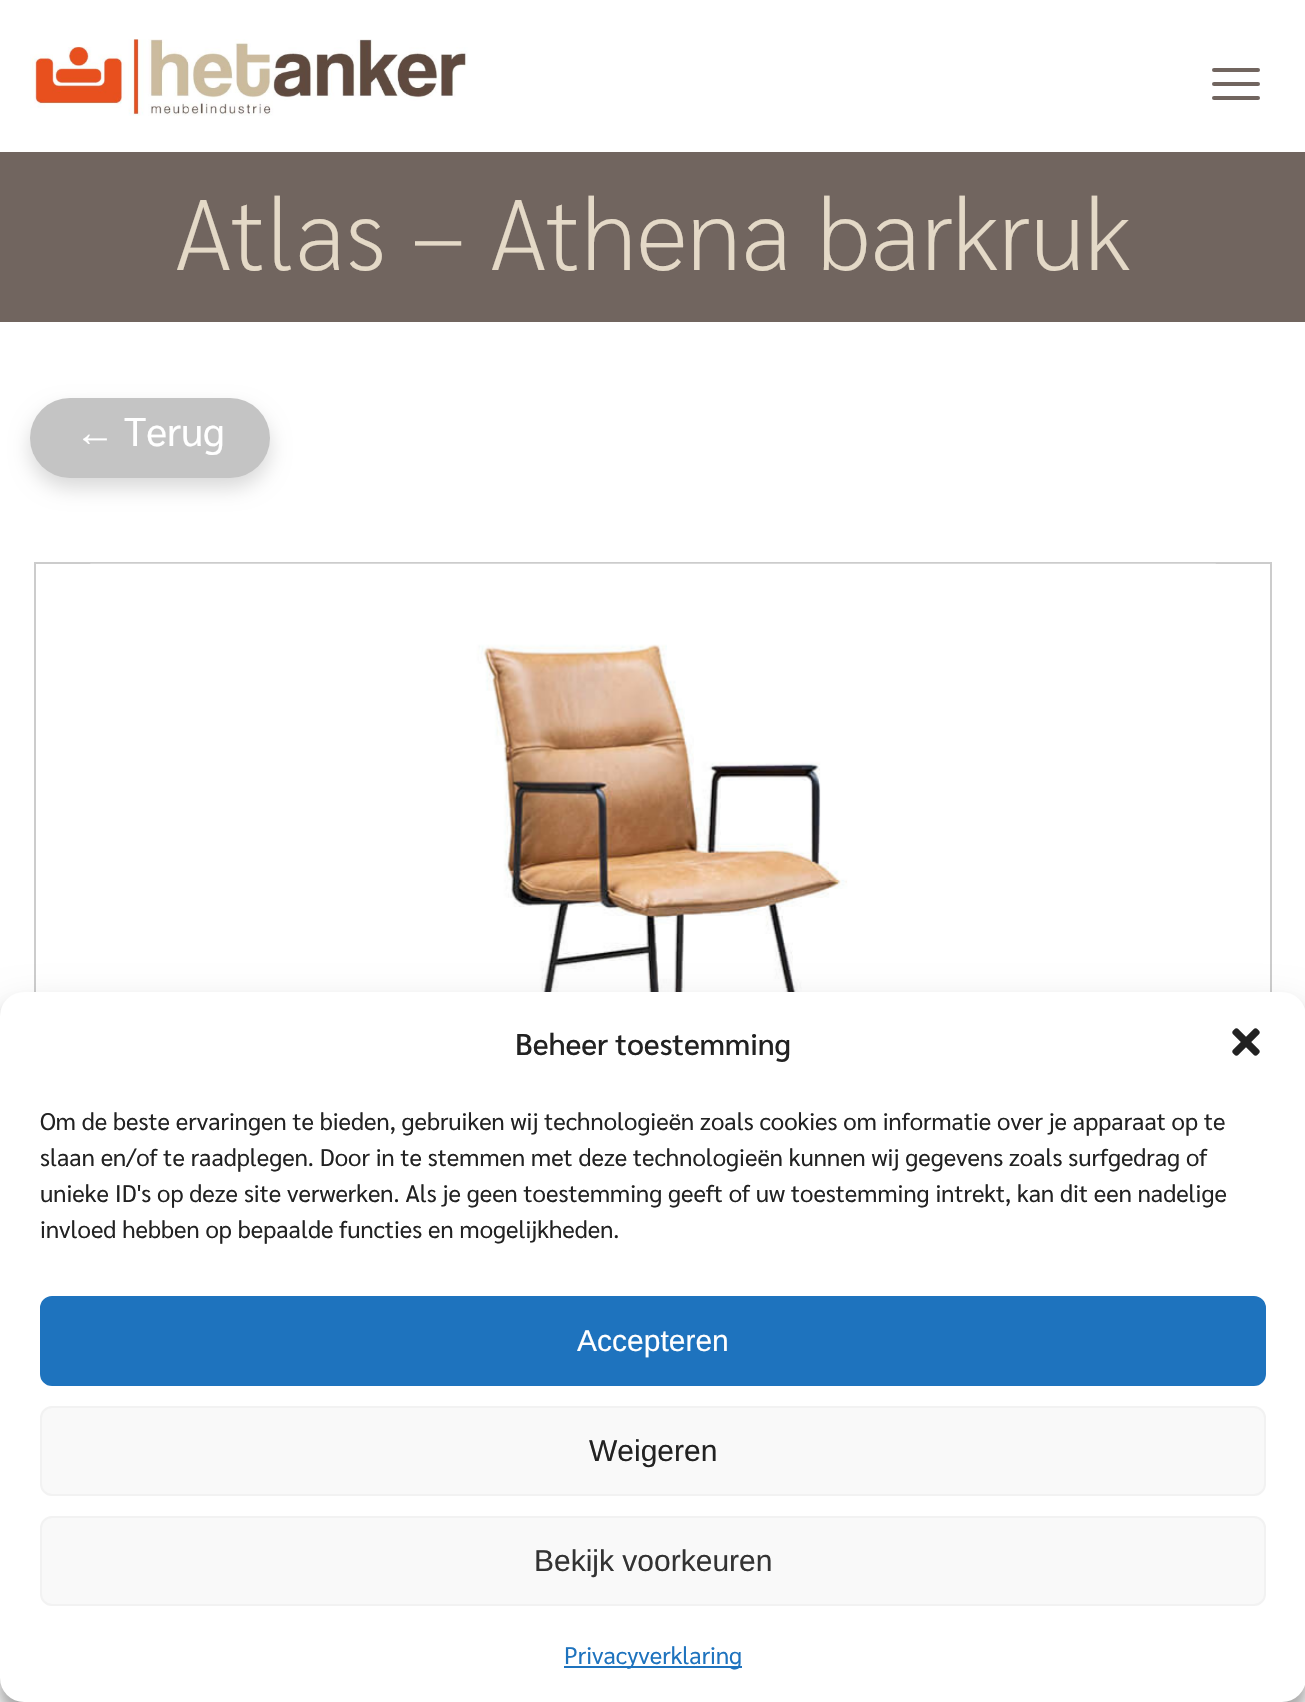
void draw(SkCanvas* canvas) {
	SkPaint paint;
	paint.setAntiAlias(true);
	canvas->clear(0xffffffff);
	canvas->drawImageRect(SkImages::DeferredFromEncodedData(SkData::MakeFromFileName("img1.png")), SkRect::MakeXYWH(30, 39, 438, 77), SkSamplingOptions());
	paint.setColor(0xff71655f);
	canvas->drawRoundRect(SkRect::MakeXYWH(1212, 82, 48, 4), 2, 2, paint);
	canvas->drawRoundRect(SkRect::MakeXYWH(1212, 68, 48, 4), 2, 2, paint);
	canvas->drawRoundRect(SkRect::MakeXYWH(1212, 96, 48, 4), 2, 2, paint);
	canvas->drawRect(SkRect::MakeXYWH(0, 152, 1305, 170), paint);
	SkFont f1(fontMgr->matchFamilyStyle("Sarabun", SkFontStyle(200, SkFontStyle::kNormal_Width, SkFontStyle::kUpright_Slant)), 100);
	f1.setSubpixel(true);
	paint.setColor(0xffe4d9c7);
	canvas->drawString("Atlas – Athena barkruk", 175, 270, f1, paint);
	paint.setColor(0x26000000);
	paint.setMaskFilter(SkMaskFilter::MakeBlur(kNormal_SkBlurStyle, 10));
	canvas->drawRoundRect(SkRect::MakeXYWH(30, 408, 240, 80), 40, 40, paint);
	paint.setMaskFilter(nullptr);
	paint.setColor(0xffc4c4c4);
	canvas->drawRoundRect(SkRect::MakeXYWH(30, 398, 240, 80), 40, 40, paint);
	SkFont f2(fontMgr->matchFamilyStyle("Liberation Sans", SkFontStyle::Normal()), 40);
	f2.setSubpixel(true);
	paint.setColor(0xffffffff);
	canvas->drawString("←", 75, 446, f2, paint);
	SkFont f3(fontMgr->matchFamilyStyle("Sarabun", SkFontStyle::Normal()), 40);
	f3.setSubpixel(true);
	canvas->drawString("Terug", 124, 446, f3, paint);
	paint.setStroke(true);
	paint.setStrokeWidth(2);
	paint.setColor(0xffcccccc);
	canvas->drawRect(SkRect::MakeXYWH(35, 563, 1236, 754), paint);
	canvas->drawImageRect(SkImages::DeferredFromEncodedData(SkData::MakeFromFileName("img2.png")), SkRect::MakeXYWH(90, 563, 1126, 429), SkSamplingOptions());
	paint.setStroke(false);
	paint.setColor(0x3b000000);
	paint.setMaskFilter(SkMaskFilter::MakeBlur(kNormal_SkBlurStyle, 6));
	canvas->drawRoundRect(SkRect::MakeXYWH(0, 1004, 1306, 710), 24, 24, paint);
	paint.setMaskFilter(nullptr);
	paint.setColor(0x30000000);
	paint.setMaskFilter(SkMaskFilter::MakeBlur(kNormal_SkBlurStyle, 20));
	canvas->drawRoundRect(SkRect::MakeXYWH(0, 1012, 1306, 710), 24, 24, paint);
	paint.setMaskFilter(nullptr);
	paint.setColor(0xffffffff);
	canvas->drawRoundRect(SkRect::MakeXYWH(0, 992, 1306, 710), 24, 24, paint);
	SkFont f4(fontMgr->matchFamilyStyle("Sarabun", SkFontStyle(500, SkFontStyle::kNormal_Width, SkFontStyle::kUpright_Slant)), 30);
	f4.setSubpixel(true);
	paint.setColor(0xff222222);
	canvas->drawString("Beheer toestemming", 515, 1055, f4, paint);
	canvas->drawImageRect(SkImages::DeferredFromEncodedData(SkData::MakeFromFileName("img3.png")), SkRect::MakeXYWH(1232, 1028, 28, 28), SkSamplingOptions());
	SkFont f5(fontMgr->matchFamilyStyle("Sarabun", SkFontStyle::Normal()), 24);
	f5.setSubpixel(true);
	canvas->drawString("Om de beste ervaringen te bieden, gebruiken wij technologieën zoals cookies om informatie over je apparaat op te", 40, 1130, f5, paint);
	canvas->drawString("slaan en/of te raadplegen. Door in te stemmen met deze technologieën kunnen wij gegevens zoals surfgedrag of", 40, 1166, f5, paint);
	canvas->drawString("unieke ID's op deze site verwerken. Als je geen toestemming geeft of uw toestemming intrekt, kan dit een nadelige", 40, 1202, f5, paint);
	canvas->drawString("invloed hebben op bepaalde functies en mogelijkheden.", 40, 1238, f5, paint);
	paint.setColor(0xff1e73be);
	canvas->drawRoundRect(SkRect::MakeXYWH(41, 1297, 1224, 88), 11, 11, paint);
	paint.setStroke(true);
	canvas->drawRoundRect(SkRect::MakeXYWH(41, 1297, 1224, 88), 11, 11, paint);
	SkFont f6(fontMgr->matchFamilyStyle("Liberation Sans", SkFontStyle::Normal()), 30);
	f6.setSubpixel(true);
	paint.setStroke(false);
	paint.setColor(0xffffffff);
	canvas->drawString("Accepteren", 577, 1351, f6, paint);
	paint.setColor(0xfff9f9f9);
	canvas->drawRoundRect(SkRect::MakeXYWH(41, 1407, 1224, 88), 11, 11, paint);
	paint.setStroke(true);
	paint.setColor(0xfff2f2f2);
	canvas->drawRoundRect(SkRect::MakeXYWH(41, 1407, 1224, 88), 11, 11, paint);
	paint.setStroke(false);
	paint.setColor(0xff222222);
	canvas->drawString("Weigeren", 589, 1461, f6, paint);
	paint.setColor(0xfff9f9f9);
	canvas->drawRoundRect(SkRect::MakeXYWH(41, 1517, 1224, 88), 11, 11, paint);
	paint.setStroke(true);
	paint.setColor(0xfff2f2f2);
	canvas->drawRoundRect(SkRect::MakeXYWH(41, 1517, 1224, 88), 11, 11, paint);
	paint.setStroke(false);
	paint.setColor(0xff333333);
	canvas->drawString("Bekijk voorkeuren", 534, 1571, f6, paint);
	paint.setColor(0xff1e73be);
	canvas->drawRect(SkRect::MakeXYWH(564, 1666, 178, 2), paint);
	canvas->drawString("Privacyverklaring", 564, 1664, f5, paint);
}
